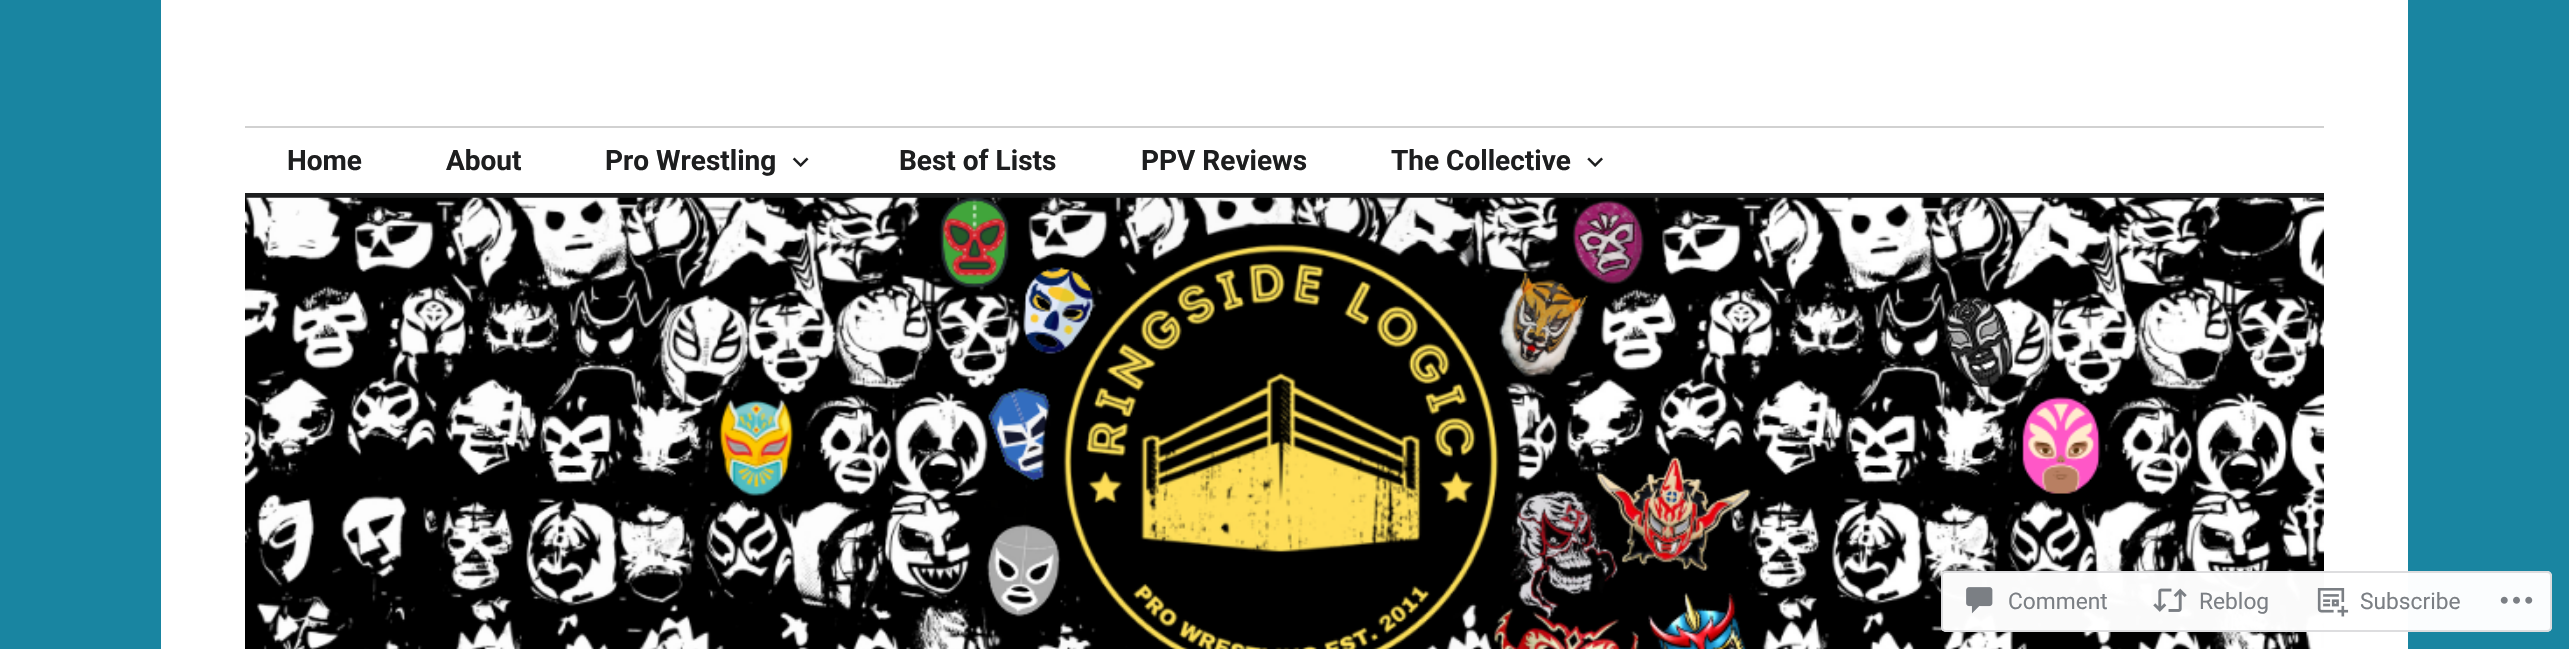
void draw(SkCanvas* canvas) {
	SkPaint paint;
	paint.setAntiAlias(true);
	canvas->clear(0xff1985a1);
	paint.setColor(0xffffffff);
	canvas->drawRect(SkRect::MakeXYWH(161, 0, 2247, 649), paint);
	paint.setColor(0xffd1d1d1);
	canvas->drawRect(SkRect::MakeXYWH(245, 126, 2079, 2), paint);
	paint.setColor(0xff1d1e1f);
	canvas->drawRect(SkRect::MakeXYWH(245, 193, 2079, 5), paint);
	SkFont f1(fontMgr->matchFamilyStyle("Roboto", SkFontStyle::Bold()), 28);
	f1.setSubpixel(true);
	canvas->drawString("Home", 287, 170, f1, paint);
	canvas->drawString("About", 446, 170, f1, paint);
	canvas->drawString("Pro Wrestling", 605, 170, f1, paint);
	canvas->drawImageRect(SkImages::DeferredFromEncodedData(SkData::MakeFromFileName("img1.png")), SkRect::MakeXYWH(792, 157, 17, 10), SkSamplingOptions());
	canvas->drawString("Best of Lists", 899, 170, f1, paint);
	canvas->drawString("PPV Reviews", 1141, 170, f1, paint);
	canvas->drawString("The Collective", 1391, 170, f1, paint);
	canvas->drawImageRect(SkImages::DeferredFromEncodedData(SkData::MakeFromFileName("img2.png")), SkRect::MakeXYWH(1587, 157, 16, 10), SkSamplingOptions());
	canvas->drawImageRect(SkImages::DeferredFromEncodedData(SkData::MakeFromFileName("img3.png")), SkRect::MakeXYWH(245, 197, 2079, 452), SkSamplingOptions());
	paint.setColor(0xfaffffff);
	canvas->drawRoundRect(SkRect::MakeXYWH(1941, 571, 611, 61), 5, 5, paint);
	paint.setStroke(true);
	paint.setStrokeWidth(2);
	paint.setColor(0xfadcdcde);
	canvas->drawRoundRect(SkRect::MakeXYWH(1942, 572, 609, 59), 4, 4, paint);
	canvas->drawImageRect(SkImages::DeferredFromEncodedData(SkData::MakeFromFileName("img4.png")), SkRect::MakeXYWH(1966, 587, 27, 27), SkSamplingOptions());
	SkFont f2(fontMgr->matchFamilyStyle("Roboto", SkFontStyle::Normal()), 22.75);
	f2.setSubpixel(true);
	paint.setStroke(false);
	paint.setColor(0xff7b7f84);
	canvas->drawString("Comment", 2008, 609, f2, paint);
	canvas->drawImageRect(SkImages::DeferredFromEncodedData(SkData::MakeFromFileName("img5.png")), SkRect::MakeXYWH(2153, 588, 34, 24), SkSamplingOptions());
	canvas->drawString("Reblog", 2199, 609, f2, paint);
	canvas->drawImageRect(SkImages::DeferredFromEncodedData(SkData::MakeFromFileName("img6.png")), SkRect::MakeXYWH(2317, 588, 32, 29), SkSamplingOptions());
	canvas->drawString("Subscribe", 2360, 609, f2, paint);
	canvas->drawImageRect(SkImages::DeferredFromEncodedData(SkData::MakeFromFileName("img7.png")), SkRect::MakeXYWH(2500, 596, 33, 8), SkSamplingOptions());
}
